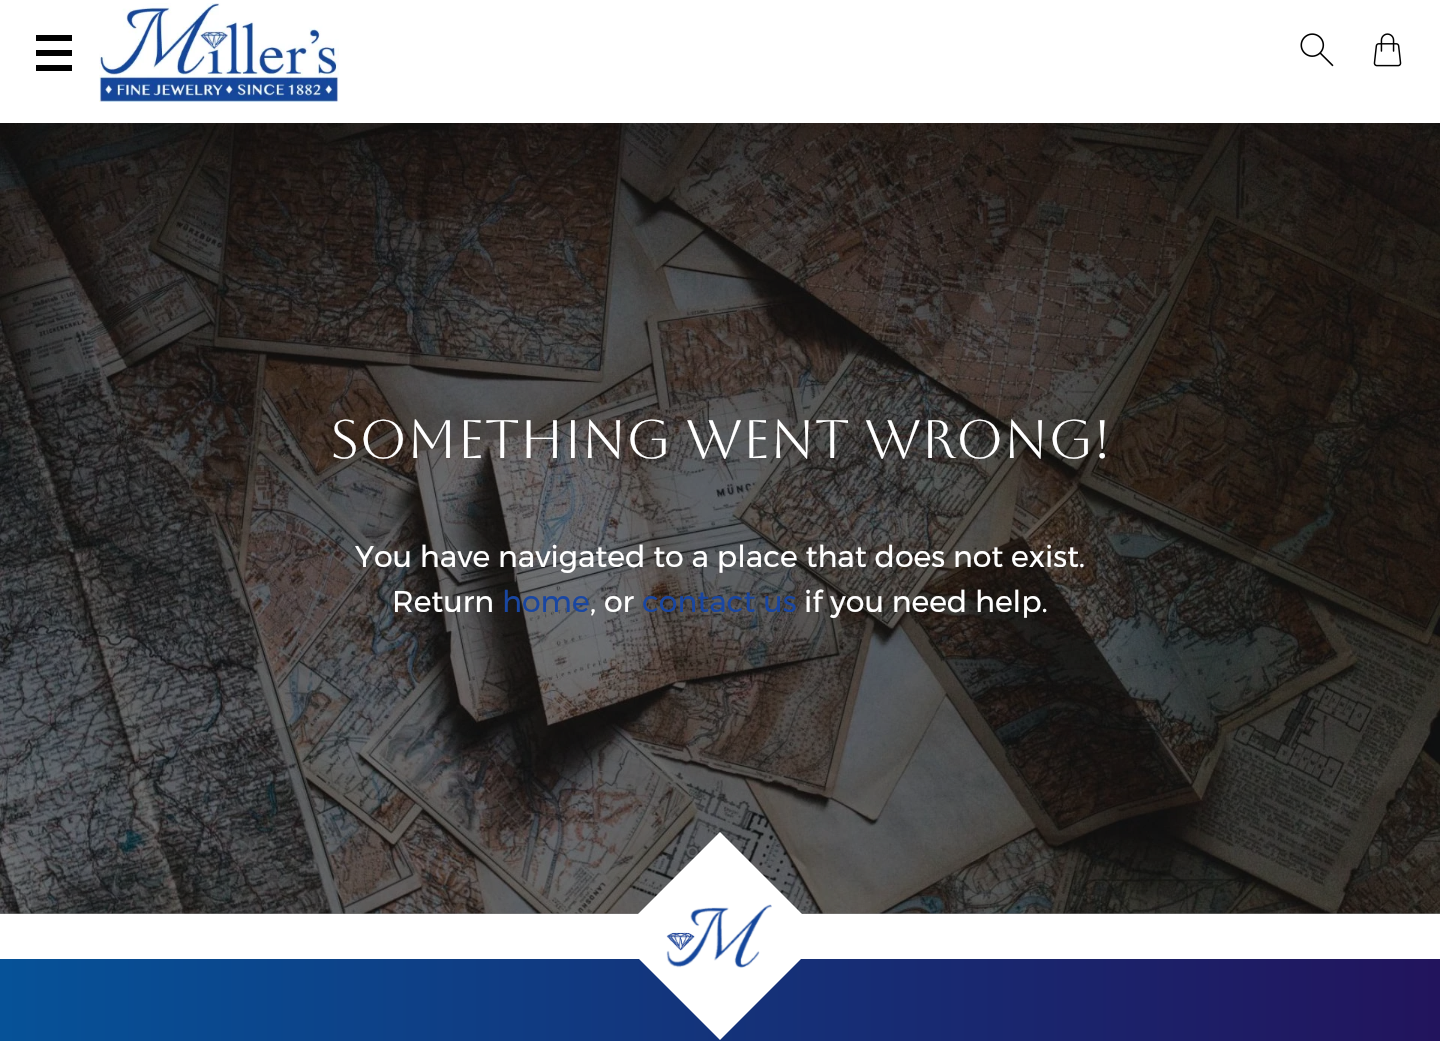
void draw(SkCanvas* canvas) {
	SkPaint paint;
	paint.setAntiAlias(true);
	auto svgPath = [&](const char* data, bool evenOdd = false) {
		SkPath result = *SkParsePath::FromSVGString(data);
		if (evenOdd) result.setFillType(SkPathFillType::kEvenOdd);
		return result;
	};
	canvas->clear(0xffffffff);
	paint.setColor(0xff808080);
	canvas->drawRect(SkRect::MakeXYWH(0, 913, 1440, 1), paint);
	paint.setColor(0xff000000);
	canvas->drawRect(SkRect::MakeXYWH(36, 35, 36, 6), paint);
	canvas->drawRect(SkRect::MakeXYWH(36, 50, 36, 6), paint);
	canvas->drawRect(SkRect::MakeXYWH(36, 65, 36, 6), paint);
	canvas->drawImageRect(SkImages::DeferredFromEncodedData(SkData::MakeFromFileName("img1.png")), SkRect::MakeXYWH(99, 3, 240, 99), SkSamplingOptions());
	canvas->drawImageRect(SkImages::DeferredFromEncodedData(SkData::MakeFromFileName("img2.png")), SkRect::MakeXYWH(1300, 33, 34, 34), SkSamplingOptions());
	canvas->drawImageRect(SkImages::DeferredFromEncodedData(SkData::MakeFromFileName("img3.png")), SkRect::MakeXYWH(1373, 33, 29, 34), SkSamplingOptions());
	canvas->drawImageRect(SkImages::DeferredFromEncodedData(SkData::MakeFromFileName("img4.png")), SkRect::MakeXYWH(0, 123, 1440, 791), SkSamplingOptions());
	SkFont f1(fontMgr->matchFamilyStyle("Aboreto", SkFontStyle::Normal()), 54);
	f1.setSubpixel(true);
	paint.setColor(0xffffffff);
	canvas->drawString("SOMETHING WENT WRONG!", 330, 458, f1, paint);
	SkFont f2(fontMgr->matchFamilyStyle("Montserrat", SkFontStyle::Normal()), 30);
	f2.setSubpixel(true);
	canvas->drawString("You have navigated to a place that does not exist.", 355, 567, f2, paint);
	canvas->drawString("Return", 392, 612, f2, paint);
	paint.setColor(0xff1946a1);
	canvas->drawString("home", 502, 612, f2, paint);
	paint.setColor(0xffffffff);
	canvas->drawString(", or", 590, 612, f2, paint);
	paint.setColor(0xff1946a1);
	canvas->drawString("contact us", 642, 612, f2, paint);
	paint.setColor(0xffffffff);
	canvas->drawString("if you need help.", 804, 612, f2, paint);
	{
		const SkColor colors[] = {0xff065298, 0xff22145d};
		const float stops[] = {0, 1};
		const SkPoint ends[] = {{0, 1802}, {1440, 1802}};
		paint.setShader(SkGradientShader::MakeLinear(ends, colors, stops, 2, SkTileMode::kClamp));
		paint.setAlpha(255);
	}
	canvas->drawRect(SkRect::MakeXYWH(0, 959, 1440, 82), paint);
	paint.setShader(nullptr);
	paint.setColor(0xffffffff);
	canvas->drawPath(svgPath("M720 832L824 936L720 1040L616 936Z"), paint);
	canvas->drawImageRect(SkImages::DeferredFromEncodedData(SkData::MakeFromFileName("img5.png")), SkRect::MakeXYWH(666, 904, 106, 64), SkSamplingOptions());
}
